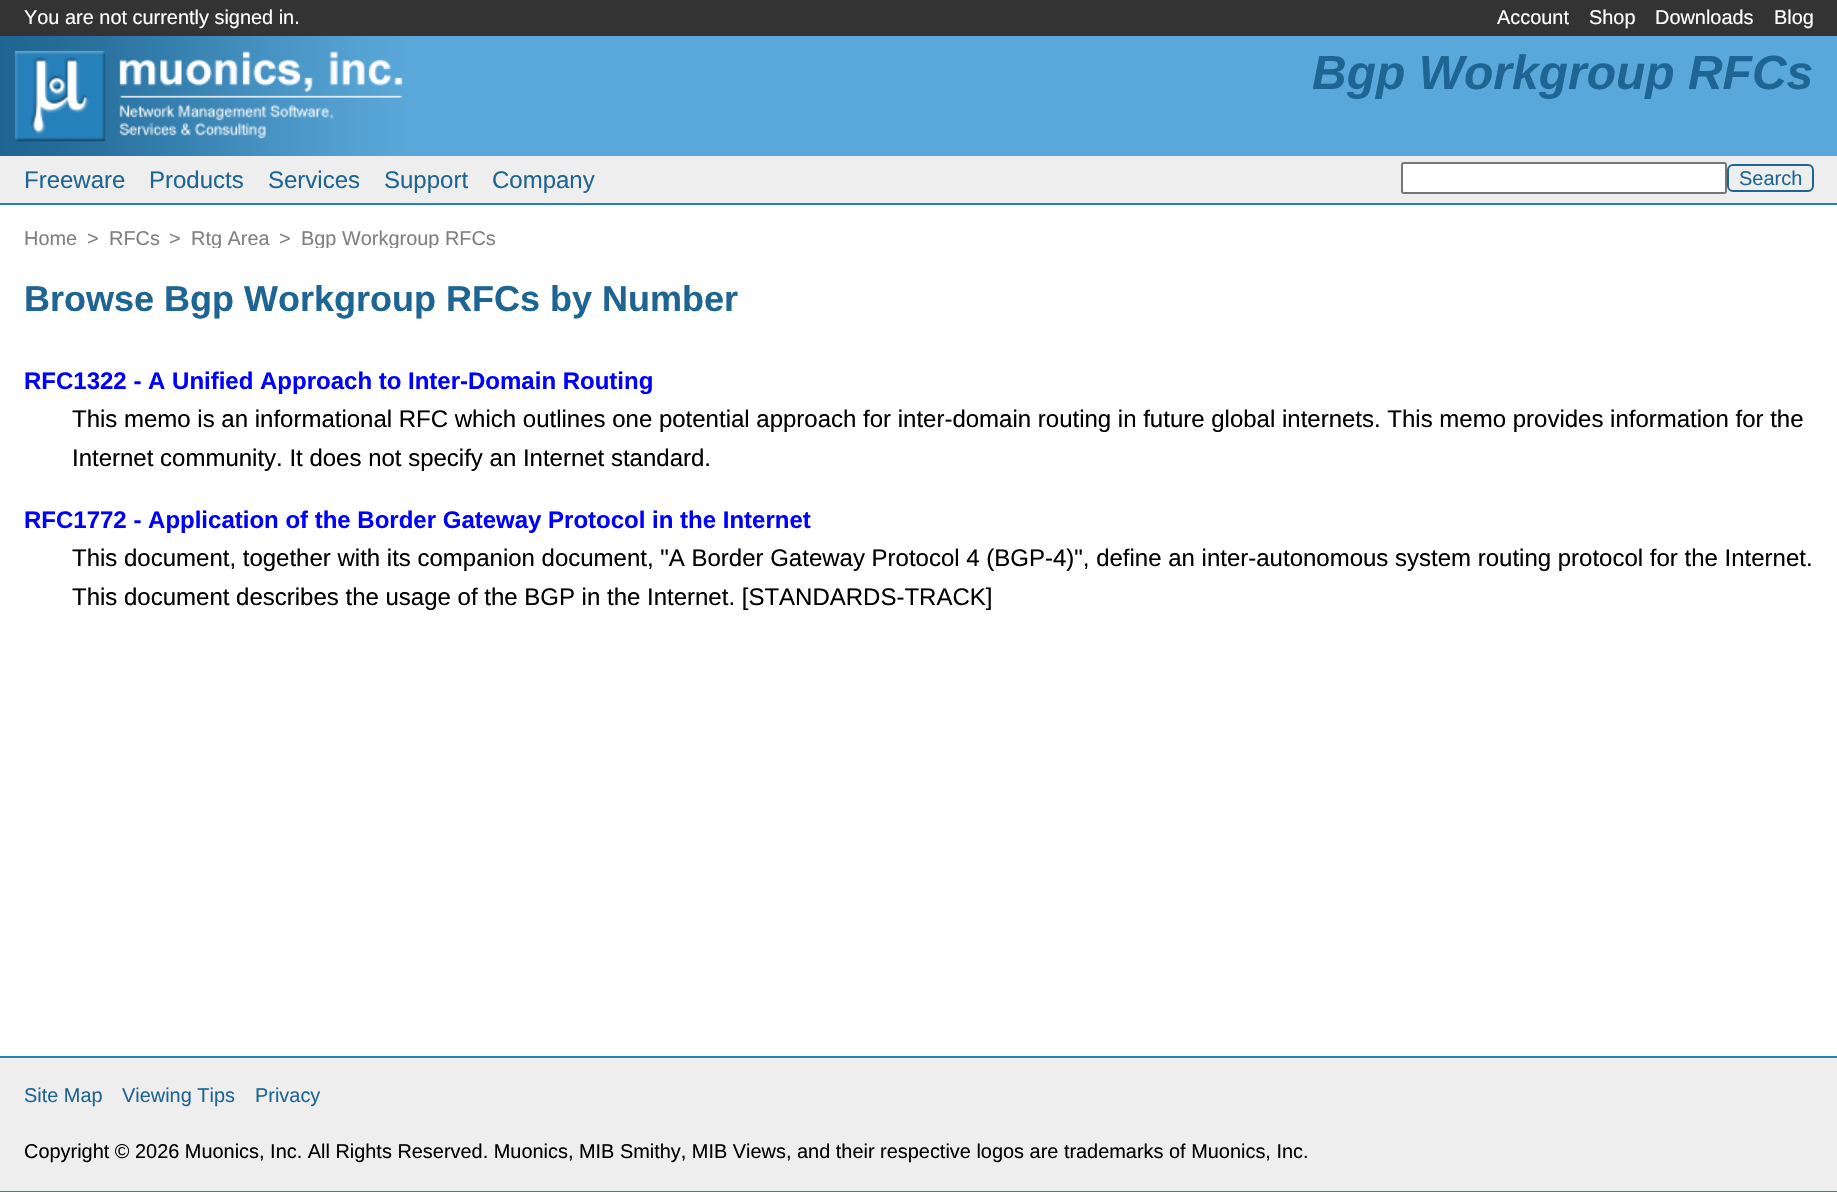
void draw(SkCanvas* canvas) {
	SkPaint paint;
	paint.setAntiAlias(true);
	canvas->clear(0xff5aa8d9);
	paint.setColor(0xff333333);
	canvas->drawRect(SkRect::MakeXYWH(0, 0, 1837, 36), paint);
	SkFont f1(fontMgr->matchFamilyStyle("Liberation Sans", SkFontStyle::Normal()), 19.92);
	f1.setSubpixel(true);
	paint.setColor(0xffffffff);
	canvas->drawString("You are not currently signed in.", 24, 24, f1, paint);
	canvas->drawString("Account", 1497, 24, f1, paint);
	canvas->drawString("Shop", 1589, 24, f1, paint);
	canvas->drawString("Downloads", 1655, 24, f1, paint);
	canvas->drawString("Blog", 1774, 24, f1, paint);
	canvas->drawImageRect(SkImages::DeferredFromEncodedData(SkData::MakeFromFileName("img1.png")), SkRect::MakeXYWH(0, 36, 403, 120), SkSamplingOptions());
	SkFont f2(fontMgr->matchFamilyStyle("Liberation Sans", SkFontStyle::BoldItalic()), 48);
	f2.setSubpixel(true);
	paint.setColor(0xff1e6593);
	canvas->drawString("Bgp Workgroup RFCs", 1312, 89, f2, paint);
	paint.setColor(0xffeeeeee);
	canvas->drawRect(SkRect::MakeXYWH(0, 156, 1837, 47), paint);
	paint.setColor(0xff2680ba);
	canvas->drawRect(SkRect::MakeXYWH(0, 203, 1837, 2), paint);
	SkFont f3(fontMgr->matchFamilyStyle("Liberation Sans", SkFontStyle::Normal()), 24);
	f3.setSubpixel(true);
	paint.setColor(0xff1e6593);
	canvas->drawString("Freeware", 24, 188, f3, paint);
	canvas->drawString("Products", 149, 188, f3, paint);
	canvas->drawString("Services", 268, 188, f3, paint);
	canvas->drawString("Support", 384, 188, f3, paint);
	canvas->drawString("Company", 492, 188, f3, paint);
	paint.setColor(0xffffffff);
	canvas->drawRoundRect(SkRect::MakeXYWH(1402, 163, 324, 30), 2, 2, paint);
	paint.setStroke(true);
	paint.setStrokeWidth(2);
	paint.setColor(0xff767676);
	canvas->drawRoundRect(SkRect::MakeXYWH(1402, 163, 324, 30), 2, 2, paint);
	paint.setColor(0xff1e6593);
	canvas->drawRoundRect(SkRect::MakeXYWH(1728, 165, 85, 26), 5, 5, paint);
	SkFont f4(fontMgr->matchFamilyStyle("Liberation Sans", SkFontStyle::Normal()), 20);
	f4.setSubpixel(true);
	paint.setStroke(false);
	canvas->drawString("Search", 1739, 185, f4, paint);
	paint.setColor(0xffffffff);
	canvas->drawRect(SkRect::MakeXYWH(0, 205, 1837, 43), paint);
	paint.setColor(0xff808080);
	canvas->drawString("Home", 24, 245, f1, paint);
	canvas->drawString(">", 87, 245, f1, paint);
	canvas->drawString("RFCs", 109, 245, f1, paint);
	canvas->drawString(">", 169, 245, f1, paint);
	canvas->drawString("Rtg Area", 191, 245, f1, paint);
	canvas->drawString(">", 279, 245, f1, paint);
	canvas->drawString("Bgp Workgroup RFCs", 301, 245, f1, paint);
	paint.setColor(0xffffffff);
	canvas->drawRect(SkRect::MakeXYWH(0, 248, 1837, 808), paint);
	SkFont f5(fontMgr->matchFamilyStyle("Liberation Sans", SkFontStyle::Bold()), 36);
	f5.setSubpixel(true);
	paint.setColor(0xff1e6593);
	canvas->drawString("Browse Bgp Workgroup RFCs by Number", 24, 311, f5, paint);
	SkFont f6(fontMgr->matchFamilyStyle("Liberation Sans", SkFontStyle::Bold()), 24);
	f6.setSubpixel(true);
	paint.setColor(0xff0000ff);
	canvas->drawString("RFC1322 - A Unified Approach to Inter-Domain Routing", 24, 389, f6, paint);
	paint.setColor(0xff000000);
	canvas->drawString("This memo is an informational RFC which outlines one potential approach for inter-domain routing in future global internets. This memo provides information for the", 72, 427, f3, paint);
	canvas->drawString("Internet community. It does not specify an Internet standard.", 72, 466, f3, paint);
	paint.setColor(0xff0000ff);
	canvas->drawString("RFC1772 - Application of the Border Gateway Protocol in the Internet", 24, 528, f6, paint);
	paint.setColor(0xff000000);
	canvas->drawString("This document, together with its companion document, \"A Border Gateway Protocol 4 (BGP-4)\", define an inter-autonomous system routing protocol for the Internet.", 72, 566, f3, paint);
	canvas->drawString("This document describes the usage of the BGP in the Internet. [STANDARDS-TRACK]", 72, 605, f3, paint);
	paint.setColor(0xffeeeeee);
	canvas->drawRect(SkRect::MakeXYWH(0, 1058, 1837, 133), paint);
	paint.setColor(0xff2680ba);
	canvas->drawRect(SkRect::MakeXYWH(0, 1056, 1837, 2), paint);
	canvas->drawRect(SkRect::MakeXYWH(0, 1191, 1837, 1), paint);
	paint.setColor(0xff1e6593);
	canvas->drawString("Site Map", 24, 1102, f1, paint);
	canvas->drawString("Viewing Tips", 122, 1102, f1, paint);
	canvas->drawString("Privacy", 255, 1102, f1, paint);
	paint.setColor(0xff000000);
	canvas->drawString("Copyright © 2026 Muonics, Inc. All Rights Reserved. Muonics, MIB Smithy, MIB Views, and their respective logos are trademarks of Muonics, Inc.", 24, 1158, f1, paint);
}
